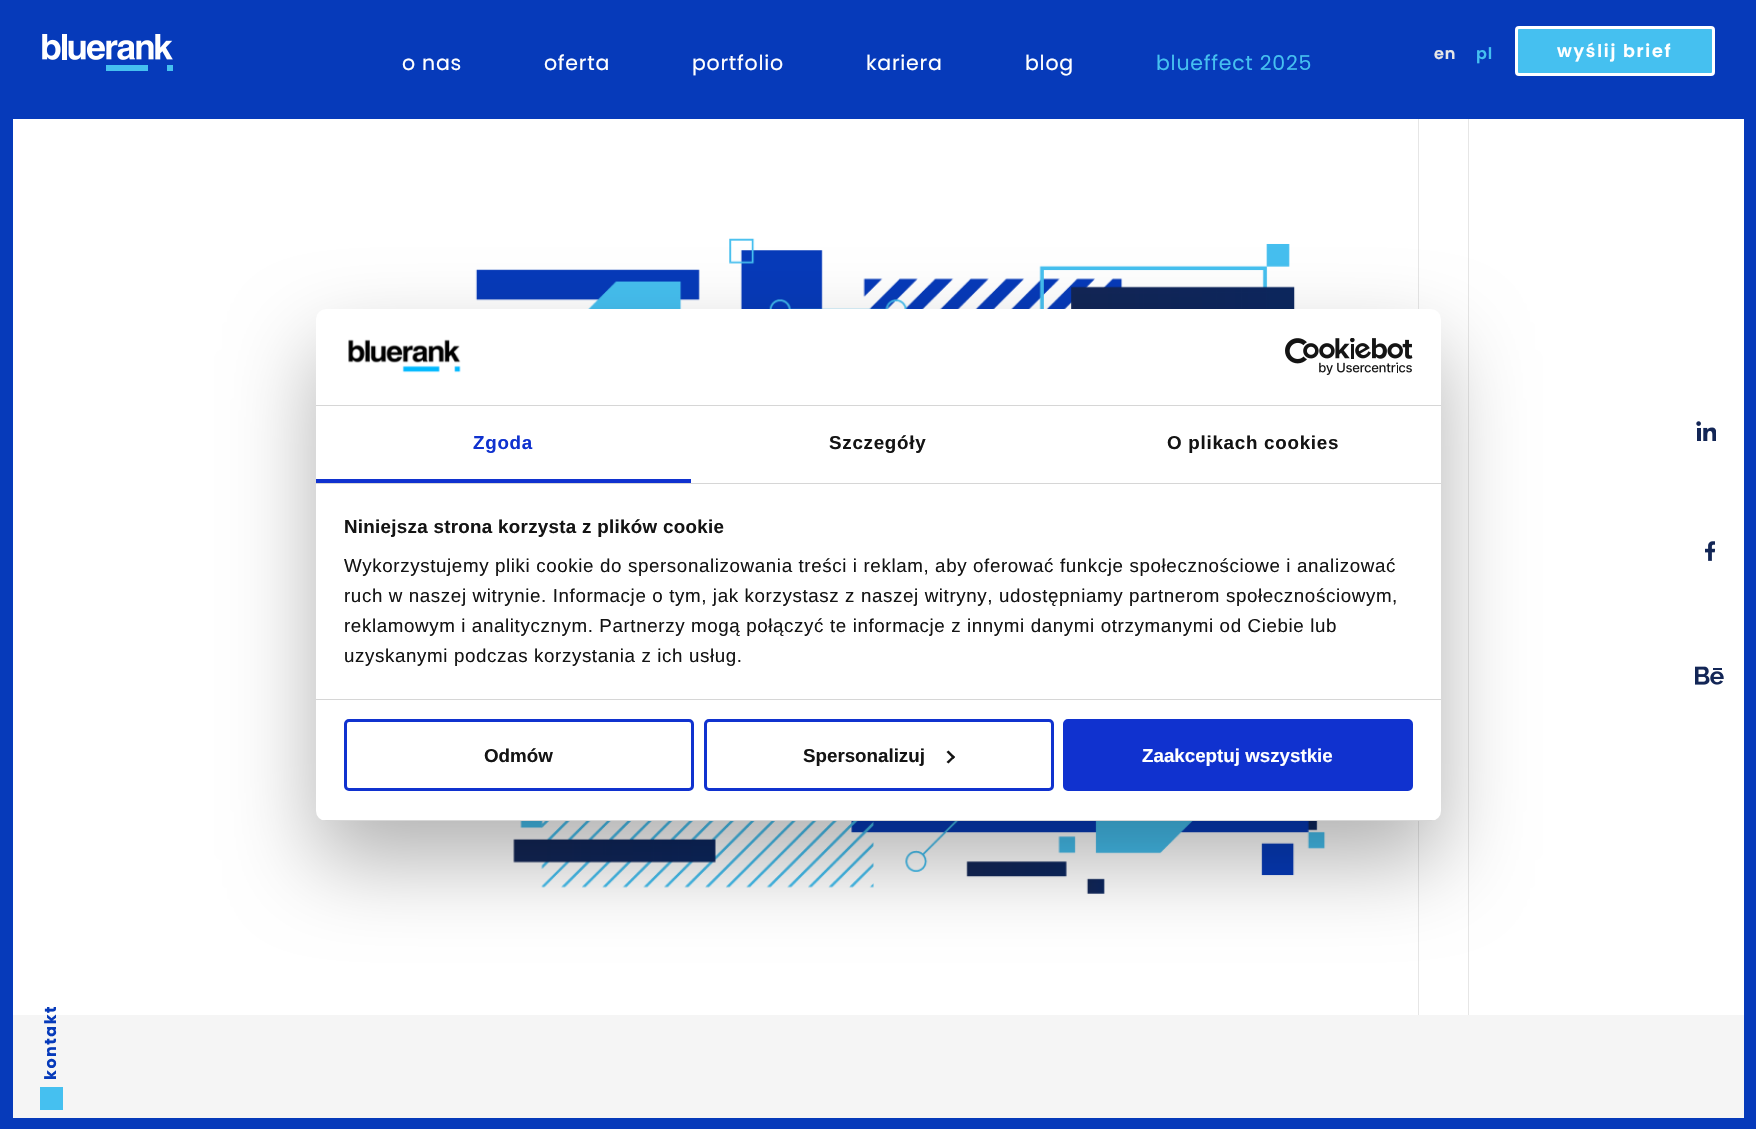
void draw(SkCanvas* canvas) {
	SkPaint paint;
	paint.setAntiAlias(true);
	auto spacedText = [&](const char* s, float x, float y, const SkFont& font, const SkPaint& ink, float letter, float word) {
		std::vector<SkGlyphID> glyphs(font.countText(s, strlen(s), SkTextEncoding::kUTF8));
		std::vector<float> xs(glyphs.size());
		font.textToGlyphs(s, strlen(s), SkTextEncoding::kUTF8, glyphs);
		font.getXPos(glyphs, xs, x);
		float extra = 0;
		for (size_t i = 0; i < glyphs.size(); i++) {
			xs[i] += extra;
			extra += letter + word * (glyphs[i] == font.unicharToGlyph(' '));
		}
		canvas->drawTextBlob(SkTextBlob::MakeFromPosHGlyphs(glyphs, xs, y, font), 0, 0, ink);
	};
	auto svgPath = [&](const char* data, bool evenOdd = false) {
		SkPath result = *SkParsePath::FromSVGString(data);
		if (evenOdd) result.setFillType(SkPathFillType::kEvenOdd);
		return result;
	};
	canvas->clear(0xffffffff);
	paint.setColor(0xff063aba);
	canvas->drawRect(SkRect::MakeXYWH(0, 0, 13, 1129), paint);
	canvas->drawRect(SkRect::MakeXYWH(13, 0, 1731, 119), paint);
	canvas->drawImageRect(SkImages::DeferredFromEncodedData(SkData::MakeFromFileName("img1.png")), SkRect::MakeXYWH(42, 34, 131, 37), SkSamplingOptions());
	SkFont f1(fontMgr->matchFamilyStyle("Poppins", SkFontStyle::Normal()), 20.5);
	f1.setSubpixel(true);
	paint.setColor(0xffffffff);
	spacedText("o nas", 402, 70, f1, paint, 0.75, 0);
	spacedText("oferta", 544, 70, f1, paint, 0.75, 0);
	spacedText("portfolio", 692, 70, f1, paint, 0.75, 0);
	spacedText("kariera", 866, 70, f1, paint, 0.75, 0);
	spacedText("blog", 1025, 70, f1, paint, 0.75, 0);
	paint.setColor(0xff45c0f0);
	spacedText("blueffect 2025", 1156, 70, f1, paint, 0.75, 0);
	canvas->drawImageRect(SkImages::DeferredFromEncodedData(SkData::MakeFromFileName("img2.png")), SkRect::MakeXYWH(475, 238, 851, 656), SkSamplingOptions());
	paint.setColor(0xffe6e6e6);
	canvas->drawRect(SkRect::MakeXYWH(1418, 119, 1, 896), paint);
	canvas->drawRect(SkRect::MakeXYWH(1468, 119, 1, 896), paint);
	paint.setColor(0xfff5f5f5);
	canvas->drawRect(SkRect::MakeXYWH(13, 1015, 1731, 103), paint);
	SkFont f2(fontMgr->matchFamilyStyle("Poppins", SkFontStyle(600, SkFontStyle::kNormal_Width, SkFontStyle::kUpright_Slant)), 16);
	f2.setSubpixel(true);
	paint.setColor(0xffe6e6e6);
	spacedText("en", 1434, 59, f2, paint, 1, 0);
	paint.setColor(0xff45c0f0);
	spacedText("pl", 1476, 59, f2, paint, 1, 0);
	canvas->drawRoundRect(SkRect::MakeXYWH(1516.5, 27.5, 197, 47), 2.5, 2.5, paint);
	paint.setStroke(true);
	paint.setStrokeWidth(3);
	paint.setColor(0xffffffff);
	canvas->drawRoundRect(SkRect::MakeXYWH(1516.5, 27.5, 197, 47), 2.5, 2.5, paint);
	SkFont f3(fontMgr->matchFamilyStyle("Poppins", SkFontStyle(600, SkFontStyle::kNormal_Width, SkFontStyle::kUpright_Slant)), 17.5);
	f3.setSubpixel(true);
	paint.setStroke(false);
	spacedText("wyślij brief", 1557, 57, f3, paint, 1.75, 0);
	paint.setColor(0xff063aba);
	canvas->drawRect(SkRect::MakeXYWH(1744, 0, 12, 1118), paint);
	canvas->drawImageRect(SkImages::DeferredFromEncodedData(SkData::MakeFromFileName("img3.png")), SkRect::MakeXYWH(1696, 421, 20, 20), SkSamplingOptions());
	paint.setColor(0x4d000000);
	paint.setMaskFilter(SkMaskFilter::MakeBlur(kNormal_SkBlurStyle, 42.5));
	canvas->drawRoundRect(SkRect::MakeXYWH(316, 349, 1125, 512), 10, 10, paint);
	paint.setMaskFilter(nullptr);
	paint.setColor(0xffffffff);
	canvas->drawRoundRect(SkRect::MakeXYWH(316, 309, 1125, 512), 10, 10, paint);
	paint.setColor(0xffd6d6d6);
	canvas->drawRect(SkRect::MakeXYWH(316, 405, 1125, 1), paint);
	canvas->drawImageRect(SkImages::DeferredFromEncodedData(SkData::MakeFromFileName("img4.png")), SkRect::MakeXYWH(348, 339, 113, 34), SkSamplingOptions());
	canvas->drawImageRect(SkImages::DeferredFromEncodedData(SkData::MakeFromFileName("img5.png")), SkRect::MakeXYWH(1285, 338, 128, 37), SkSamplingOptions());
	canvas->drawRect(SkRect::MakeXYWH(316, 483, 1125, 1), paint);
	paint.setColor(0xff1032cf);
	canvas->drawRect(SkRect::MakeXYWH(316, 479, 375, 4), paint);
	SkFont f4(fontMgr->matchFamilyStyle("Liberation Sans", SkFontStyle::Bold()), 18.75);
	f4.setSubpixel(true);
	spacedText("Zgoda", 473, 449, f4, paint, 0.75, 0);
	paint.setColor(0xff141414);
	spacedText("Szczegóły", 829, 449, f4, paint, 0.75, 0);
	spacedText("O plikach cookies", 1167, 449, f4, paint, 0.75, 0);
	paint.setColor(0xffd6d6d6);
	canvas->drawRect(SkRect::MakeXYWH(316, 699, 1125, 1), paint);
	paint.setColor(0xff141414);
	spacedText("Niniejsza strona korzysta z plików cookie", 344, 533, f4, paint, 0.3, 0);
	SkFont f5(fontMgr->matchFamilyStyle("Liberation Sans", SkFontStyle::Normal()), 18.75);
	f5.setSubpixel(true);
	spacedText("Wykorzystujemy pliki cookie do spersonalizowania treści i reklam, aby oferować funkcje społecznościowe i analizować", 344, 572, f5, paint, 0.62, 0);
	spacedText("ruch w naszej witrynie. Informacje o tym, jak korzystasz z naszej witryny, udostępniamy partnerom społecznościowym,", 344, 602, f5, paint, 0.62, 0);
	spacedText("reklamowym i analitycznym. Partnerzy mogą połączyć te informacje z innymi danymi otrzymanymi od Ciebie lub", 344, 632, f5, paint, 0.62, 0);
	spacedText("uzyskanymi podczas korzystania z ich usług.", 344, 662, f5, paint, 0.62, 0);
	canvas->save();
	canvas->clipPath(svgPath("M326 309H1431C1436.5 309 1441 313.5 1441 319V811C1441 816.5 1436.5 821 1431 821H326C320.5 821 316 816.5 316 811V319C316 313.5 320.5 309 326 309Z"), true);
	paint.setColor(0xffd6d6d6);
	canvas->drawRect(SkRect::MakeXYWH(316, 820, 1125, 1), paint);
	canvas->restore();
	paint.setStroke(true);
	paint.setColor(0xff1032cf);
	canvas->drawRoundRect(SkRect::MakeXYWH(345.5, 720.5, 347, 69), 3.5, 3.5, paint);
	paint.setStroke(false);
	paint.setColor(0xff141414);
	canvas->drawString("Odmów", 484, 762, f4, paint);
	paint.setStroke(true);
	paint.setColor(0xff1032cf);
	canvas->drawRoundRect(SkRect::MakeXYWH(705.5, 720.5, 347, 69), 3.5, 3.5, paint);
	paint.setStroke(false);
	paint.setColor(0xff141414);
	canvas->drawString("Spersonalizuj", 803, 762, f4, paint);
	canvas->drawPath(svgPath("M948.5 750.5L955 757L953.5 759L946.5 752Z"), paint);
	canvas->drawPath(svgPath("M953.5 755.5L955 757L948.5 763.5L946.5 762Z"), paint);
	paint.setColor(0xff1032cf);
	canvas->drawRoundRect(SkRect::MakeXYWH(1064.5, 720.5, 347, 69), 3.5, 3.5, paint);
	paint.setStroke(true);
	canvas->drawRoundRect(SkRect::MakeXYWH(1064.5, 720.5, 347, 69), 3.5, 3.5, paint);
	paint.setStroke(false);
	paint.setColor(0xffffffff);
	canvas->drawString("Zaakceptuj wszystkie", 1142, 762, f4, paint);
	canvas->drawImageRect(SkImages::DeferredFromEncodedData(SkData::MakeFromFileName("img6.png")), SkRect::MakeXYWH(1705, 541, 10, 20), SkSamplingOptions());
	canvas->drawImageRect(SkImages::DeferredFromEncodedData(SkData::MakeFromFileName("img7.png")), SkRect::MakeXYWH(1695, 666, 29, 19), SkSamplingOptions());
	SkFont f6(fontMgr->matchFamilyStyle("Poppins", SkFontStyle::Bold()), 16);
	f6.setSubpixel(true);
	paint.setColor(0xff063aba);
	canvas->save();
	canvas->rotate(-90, 56, 1080);
	spacedText("kontakt", 56, 1080, f6, paint, 1.5, 0);
	canvas->restore();
	paint.setColor(0xff45c0f0);
	canvas->drawRect(SkRect::MakeXYWH(40, 1087, 23, 23), paint);
	paint.setColor(0xff063aba);
	canvas->drawRect(SkRect::MakeXYWH(13, 1118, 1743, 11), paint);
}
